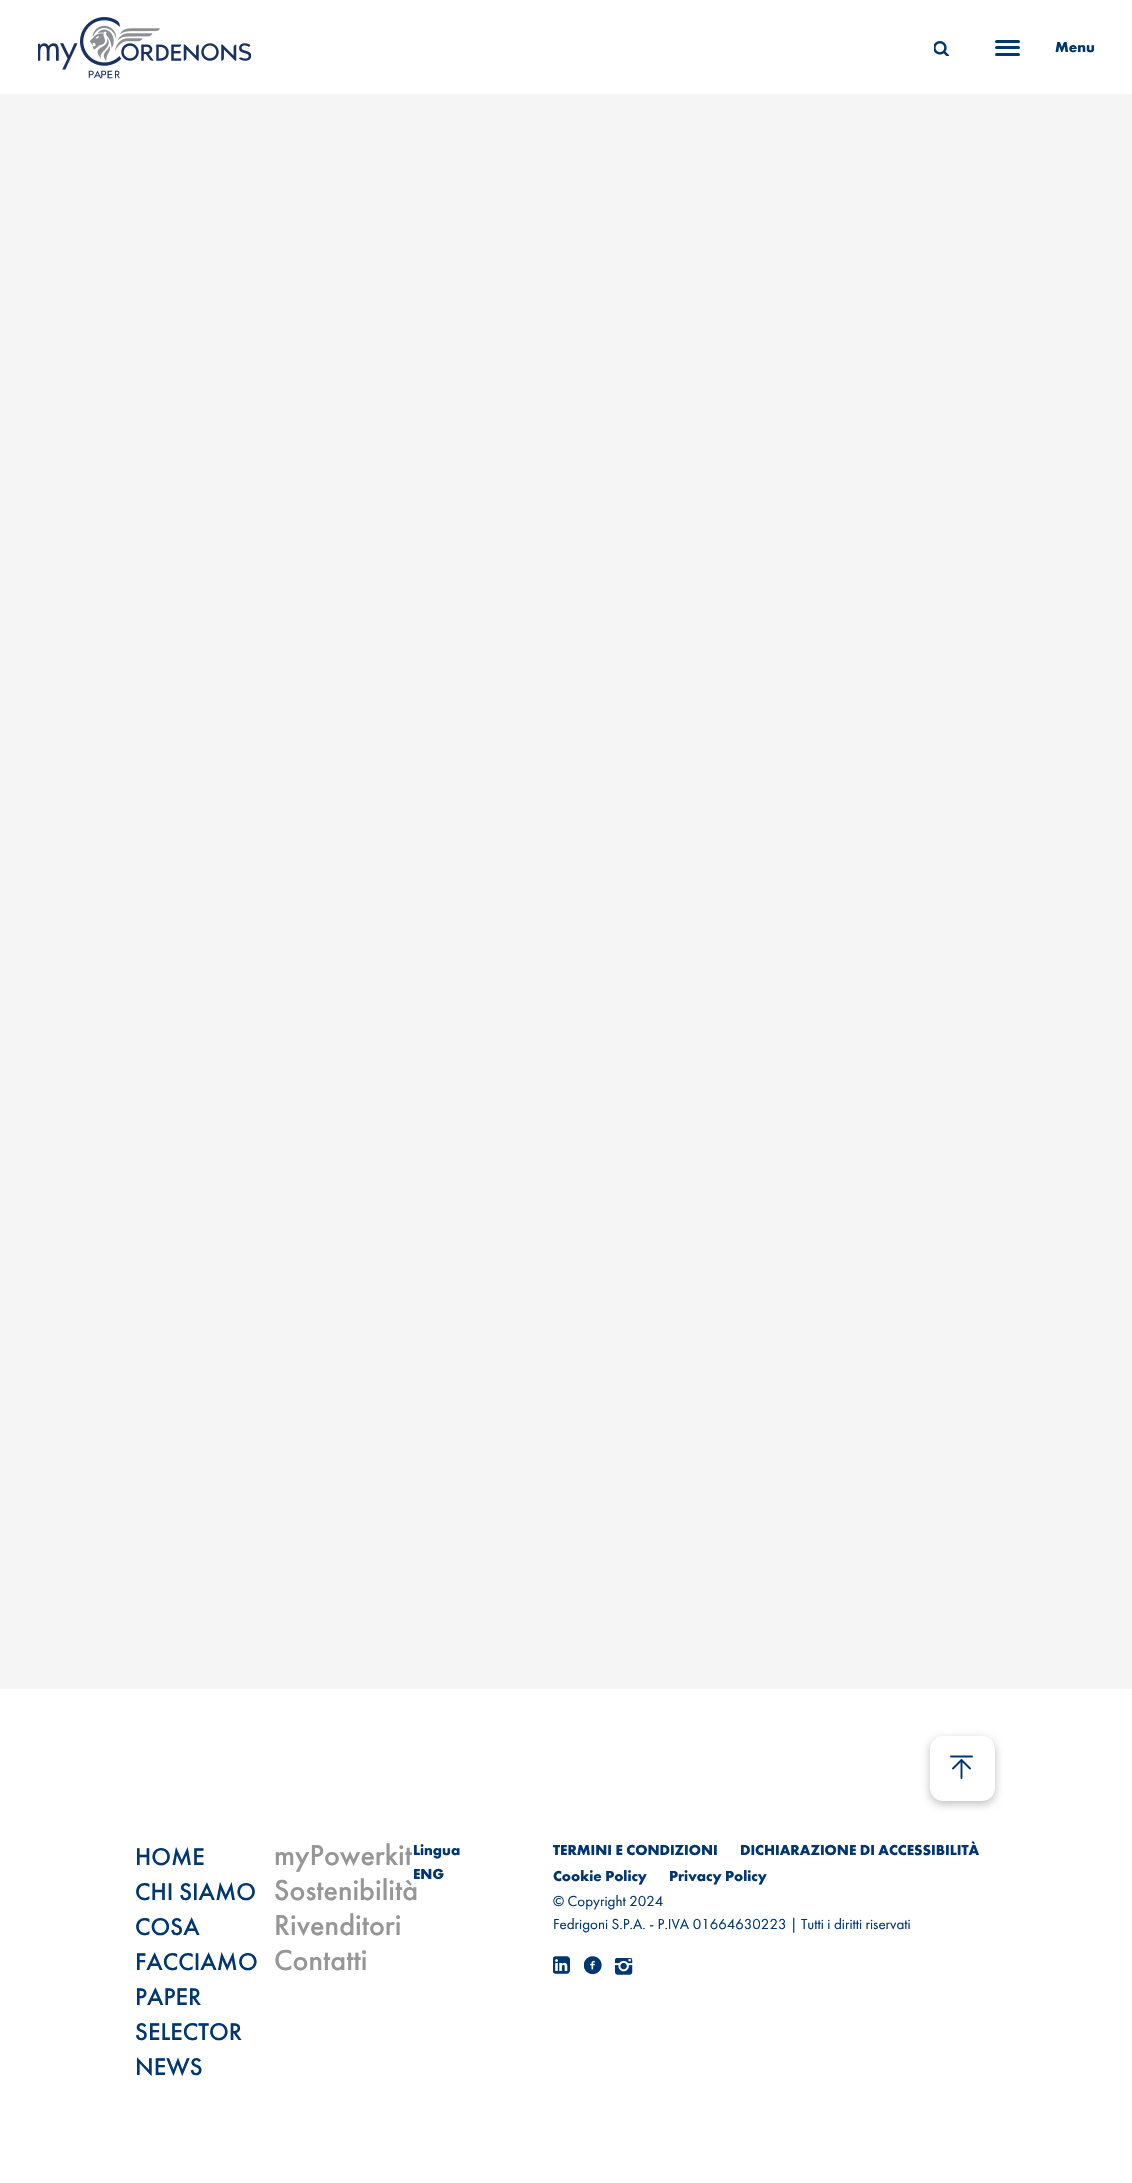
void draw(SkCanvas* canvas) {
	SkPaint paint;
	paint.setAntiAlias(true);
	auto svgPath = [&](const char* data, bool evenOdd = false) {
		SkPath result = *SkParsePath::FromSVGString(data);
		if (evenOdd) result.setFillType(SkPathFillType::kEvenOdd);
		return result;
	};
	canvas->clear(0xfff5f5f5);
	paint.setColor(0xffffffff);
	canvas->drawRect(SkRect::MakeXYWH(0, 0, 1132, 94), paint);
	canvas->drawImageRect(SkImages::DeferredFromEncodedData(SkData::MakeFromFileName("img1.png")), SkRect::MakeXYWH(38, 17, 213, 62), SkSamplingOptions());
	canvas->drawImageRect(SkImages::DeferredFromEncodedData(SkData::MakeFromFileName("img2.png")), SkRect::MakeXYWH(934, 41, 16, 15), SkSamplingOptions());
	paint.setColor(0xff003671);
	canvas->drawRoundRect(SkRect::MakeXYWH(995, 40, 25, 3), 1.5, 1.5, paint);
	canvas->drawRoundRect(SkRect::MakeXYWH(995, 46, 25, 3), 1.5, 1.5, paint);
	canvas->drawRoundRect(SkRect::MakeXYWH(995, 53, 25, 3), 1.5, 1.5, paint);
	SkFont f1(fontMgr->matchFamilyStyle("Futura PT", SkFontStyle::Bold()), 15);
	f1.setSubpixel(true);
	canvas->drawString("Menu", 1055, 52, f1, paint);
	paint.setColor(0xffffffff);
	canvas->drawRect(SkRect::MakeXYWH(0, 1689, 1132, 494), paint);
	canvas->save();
	canvas->clipPath(svgPath("M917 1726H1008V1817H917ZM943 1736H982C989 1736 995 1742 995 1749V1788C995 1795 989 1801 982 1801H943C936 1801 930 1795 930 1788V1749C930 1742 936 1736 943 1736Z", true), true);
	paint.setColor(0x40000000);
	paint.setMaskFilter(SkMaskFilter::MakeBlur(kNormal_SkBlurStyle, 4));
	canvas->drawRoundRect(SkRect::MakeXYWH(930, 1739, 65, 65), 13, 13, paint);
	paint.setMaskFilter(nullptr);
	canvas->restore();
	paint.setStroke(true);
	paint.setStrokeWidth(1.9);
	paint.setStrokeCap(SkPaint::kRound_Cap);
	paint.setStrokeJoin(SkPaint::kRound_Join);
	paint.setColor(0xff003671);
	canvas->drawPath(svgPath("M961.5 1778V1760M953 1768.5L961.5 1760L970 1768.5M951 1756.5H972"), paint);
	SkFont f2(fontMgr->matchFamilyStyle("Futura PT", SkFontStyle(500, SkFontStyle::kNormal_Width, SkFontStyle::kUpright_Slant)), 25);
	f2.setSubpixel(true);
	paint.setStroke(false);
	canvas->drawString("HOME", 135, 1865, f2, paint);
	canvas->drawString("CHI SIAMO", 135, 1900, f2, paint);
	canvas->drawString("COSA", 135, 1935, f2, paint);
	canvas->drawString("FACCIAMO", 135, 1970, f2, paint);
	canvas->drawString("PAPER", 135, 2005, f2, paint);
	canvas->drawString("SELECTOR", 135, 2040, f2, paint);
	canvas->drawString("NEWS", 135, 2075, f2, paint);
	SkFont f3(fontMgr->matchFamilyStyle("Futura PT", SkFontStyle(500, SkFontStyle::kNormal_Width, SkFontStyle::kUpright_Slant)), 30);
	f3.setSubpixel(true);
	paint.setColor(0xff969696);
	canvas->drawString("myPowerkit", 274, 1865, f3, paint);
	canvas->drawString("Sostenibilità", 274, 1900, f3, paint);
	canvas->drawString("Rivenditori", 274, 1935, f3, paint);
	canvas->drawString("Contatti", 274, 1970, f3, paint);
	paint.setColor(0xff003671);
	canvas->drawString("Lingua", 413, 1855, f1, paint);
	canvas->drawString("ENG", 413, 1879, f1, paint);
	canvas->drawString("TERMINI E CONDIZIONI", 553, 1855, f1, paint);
	canvas->drawString("DICHIARAZIONE DI ACCESSIBILITÀ", 740, 1855, f1, paint);
	canvas->drawString("Cookie Policy", 553, 1881, f1, paint);
	canvas->drawString("Privacy Policy", 669, 1881, f1, paint);
	SkFont f4(fontMgr->matchFamilyStyle("Futura PT", SkFontStyle::Normal()), 15);
	f4.setSubpixel(true);
	canvas->drawString("© Copyright 2024", 553, 1906, f4, paint);
	canvas->drawString("Fedrigoni S.P.A. - P.IVA 01664630223 | Tutti i diritti riservati", 553, 1929, f4, paint);
	canvas->drawImageRect(SkImages::DeferredFromEncodedData(SkData::MakeFromFileName("img3.png")), SkRect::MakeXYWH(553, 1956, 17, 18), SkSamplingOptions());
	canvas->drawImageRect(SkImages::DeferredFromEncodedData(SkData::MakeFromFileName("img4.png")), SkRect::MakeXYWH(584, 1956, 18, 19), SkSamplingOptions());
	canvas->drawImageRect(SkImages::DeferredFromEncodedData(SkData::MakeFromFileName("img5.png")), SkRect::MakeXYWH(615, 1958, 18, 17), SkSamplingOptions());
}
